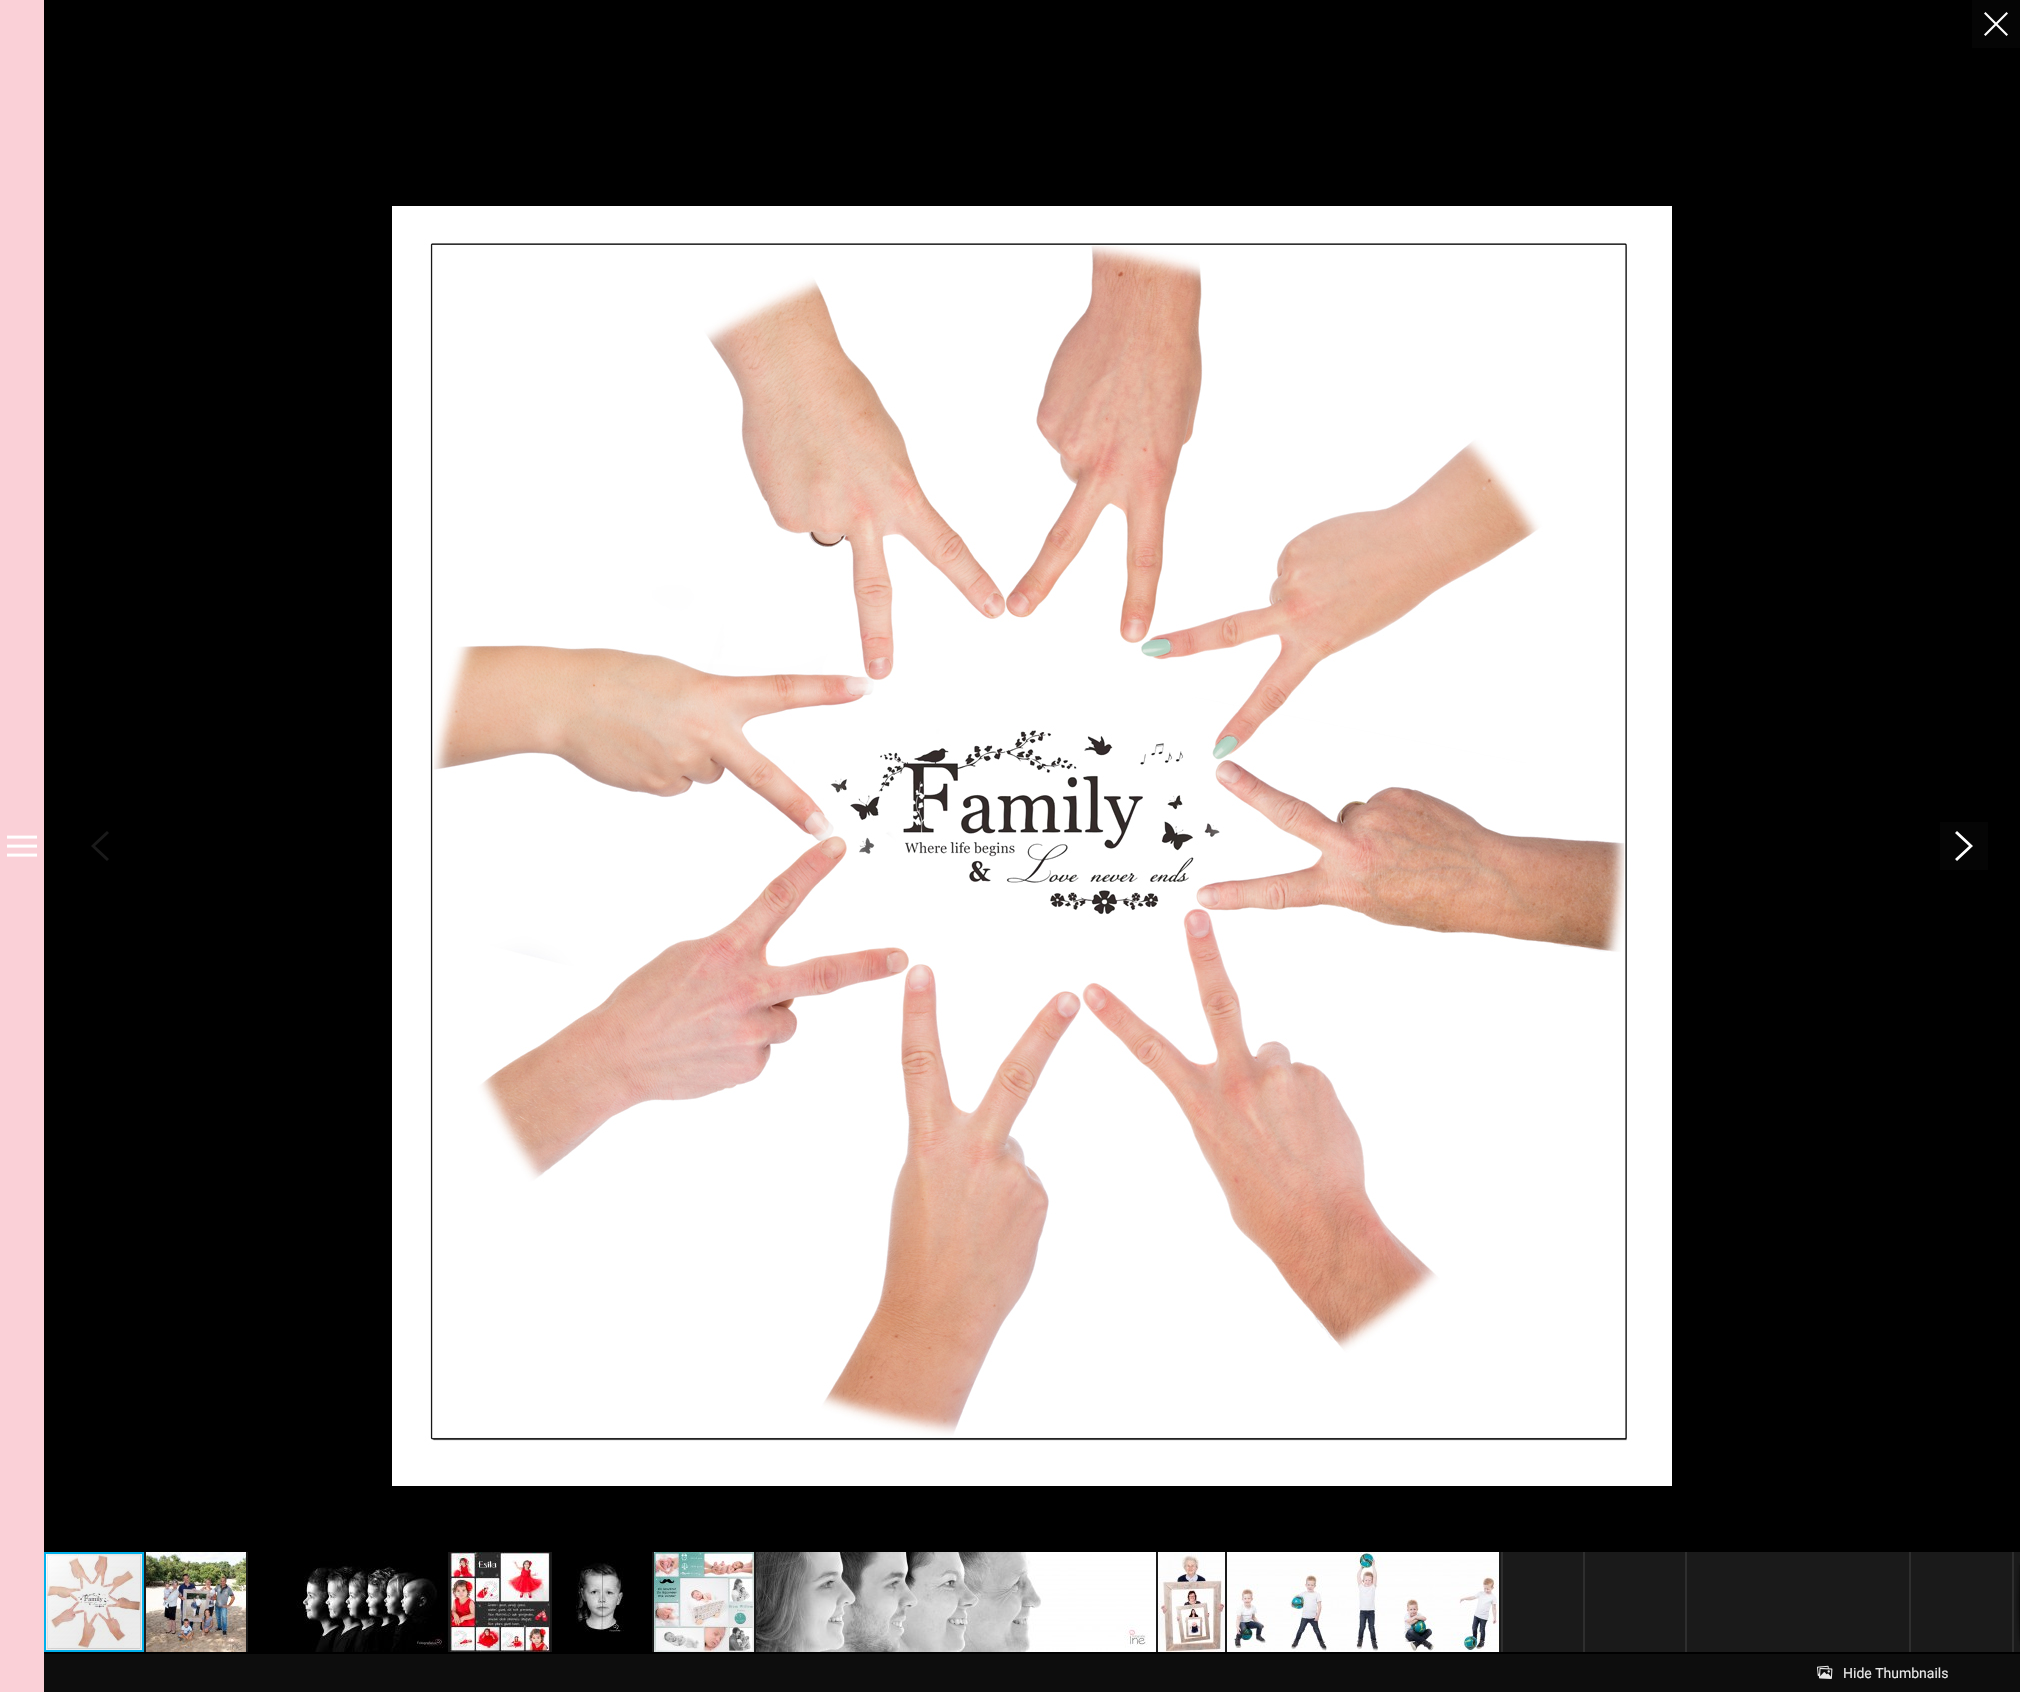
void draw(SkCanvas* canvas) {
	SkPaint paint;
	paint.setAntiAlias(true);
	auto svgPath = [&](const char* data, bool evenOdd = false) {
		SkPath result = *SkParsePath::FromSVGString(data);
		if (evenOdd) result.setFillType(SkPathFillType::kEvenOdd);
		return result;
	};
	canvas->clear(0xff000000);
	paint.setColor(0xfffad0d7);
	canvas->drawRect(SkRect::MakeXYWH(0, 0, 44, 1692), paint);
	canvas->drawImageRect(SkImages::DeferredFromEncodedData(SkData::MakeFromFileName("img1.png")), SkRect::MakeXYWH(7, 835, 30, 22), SkSamplingOptions());
	paint.setColor(0xff1a1a1a);
	canvas->drawRect(SkRect::MakeXYWH(2014, 1552, 6, 100), paint);
	canvas->drawRect(SkRect::MakeXYWH(1911, 1552, 101, 100), paint);
	paint.setColor(0xff2e2e2e);
	canvas->drawRect(SkRect::MakeXYWH(2012, 1552, 2, 100), paint);
	paint.setColor(0xff1a1a1a);
	canvas->drawRect(SkRect::MakeXYWH(1687, 1552, 222, 100), paint);
	paint.setColor(0xff2e2e2e);
	canvas->drawRect(SkRect::MakeXYWH(1909, 1552, 2, 100), paint);
	paint.setColor(0xff1a1a1a);
	canvas->drawRect(SkRect::MakeXYWH(1585, 1552, 100, 100), paint);
	paint.setColor(0xff2e2e2e);
	canvas->drawRect(SkRect::MakeXYWH(1685, 1552, 2, 100), paint);
	paint.setColor(0xff1a1a1a);
	canvas->drawRect(SkRect::MakeXYWH(1503, 1552, 80, 100), paint);
	paint.setColor(0xff2e2e2e);
	canvas->drawRect(SkRect::MakeXYWH(1583, 1552, 2, 100), paint);
	paint.setColor(0xff1a1a1a);
	canvas->drawRect(SkRect::MakeXYWH(1499, 1552, 2, 100), paint);
	paint.setColor(0xff2e2e2e);
	canvas->drawRect(SkRect::MakeXYWH(1501, 1552, 2, 100), paint);
	paint.setColor(0xff1a1a1a);
	canvas->drawRect(SkRect::MakeXYWH(1225, 1552, 2, 100), paint);
	canvas->drawRect(SkRect::MakeXYWH(1156, 1552, 2, 100), paint);
	canvas->drawRect(SkRect::MakeXYWH(754, 1552, 2, 100), paint);
	canvas->drawRect(SkRect::MakeXYWH(652, 1552, 2, 100), paint);
	canvas->drawRect(SkRect::MakeXYWH(550, 1552, 2, 100), paint);
	canvas->drawRect(SkRect::MakeXYWH(448, 1552, 2, 100), paint);
	canvas->drawRect(SkRect::MakeXYWH(246, 1552, 2, 100), paint);
	paint.setColor(0xff050505);
	canvas->drawRect(SkRect::MakeXYWH(1972, 0, 48, 48), paint);
	canvas->drawImageRect(SkImages::DeferredFromEncodedData(SkData::MakeFromFileName("img2.png")), SkRect::MakeXYWH(1984, 12, 24, 24), SkSamplingOptions());
	paint.setColor(0xff1a1a1a);
	canvas->drawPath(svgPath("M109 833L95 846L109 859L107 861L91 846L107 831Z"), paint);
	canvas->drawImageRect(SkImages::DeferredFromEncodedData(SkData::MakeFromFileName("img3.png")), SkRect::MakeXYWH(392, 206, 1280, 1280), SkSamplingOptions());
	paint.setColor(0xff050505);
	canvas->drawRect(SkRect::MakeXYWH(1940, 822, 48, 48), paint);
	paint.setColor(0xffffffff);
	canvas->drawPath(svgPath("M1955 833L1957 831L1973 846L1957 861L1955 859L1969 846Z"), paint);
	canvas->drawImageRect(SkImages::DeferredFromEncodedData(SkData::MakeFromFileName("img4.png")), SkRect::MakeXYWH(46, 1554, 96, 96), SkSamplingOptions());
	paint.setStroke(true);
	paint.setStrokeWidth(2);
	paint.setColor(0xff00b0eb);
	canvas->drawRect(SkRect::MakeXYWH(45, 1553, 98, 98), paint);
	paint.setStroke(false);
	paint.setColor(0xff1a1a1a);
	canvas->drawRect(SkRect::MakeXYWH(144, 1552, 2, 100), paint);
	canvas->drawImageRect(SkImages::DeferredFromEncodedData(SkData::MakeFromFileName("img5.png")), SkRect::MakeXYWH(146, 1552, 100, 100), SkSamplingOptions());
	canvas->drawImageRect(SkImages::DeferredFromEncodedData(SkData::MakeFromFileName("img6.png")), SkRect::MakeXYWH(248, 1552, 200, 100), SkSamplingOptions());
	canvas->drawImageRect(SkImages::DeferredFromEncodedData(SkData::MakeFromFileName("img7.png")), SkRect::MakeXYWH(450, 1552, 100, 100), SkSamplingOptions());
	canvas->drawImageRect(SkImages::DeferredFromEncodedData(SkData::MakeFromFileName("img8.png")), SkRect::MakeXYWH(552, 1552, 100, 100), SkSamplingOptions());
	canvas->drawImageRect(SkImages::DeferredFromEncodedData(SkData::MakeFromFileName("img9.png")), SkRect::MakeXYWH(654, 1552, 100, 100), SkSamplingOptions());
	canvas->drawImageRect(SkImages::DeferredFromEncodedData(SkData::MakeFromFileName("img10.png")), SkRect::MakeXYWH(756, 1552, 400, 100), SkSamplingOptions());
	canvas->drawImageRect(SkImages::DeferredFromEncodedData(SkData::MakeFromFileName("img11.png")), SkRect::MakeXYWH(1158, 1552, 67, 100), SkSamplingOptions());
	canvas->drawImageRect(SkImages::DeferredFromEncodedData(SkData::MakeFromFileName("img12.png")), SkRect::MakeXYWH(1227, 1552, 272, 100), SkSamplingOptions());
	{
		const SkColor colors[] = {0x66000000, 0x00000000};
		const float stops[] = {0, 1};
		SkMatrix m = SkMatrix::Translate(2020, 1602).preScale(5, 52);
		paint.setShader(SkGradientShader::MakeRadial({0, 0}, 1, colors, stops, 2, SkTileMode::kClamp, 0, &m));
		paint.setAlpha(255);
	}
	canvas->drawRect(SkRect::MakeXYWH(2016, 1563, 4, 78), paint);
	{
		const SkColor colors[] = {0x00000000, 0x33000000, 0x4d000000, 0x00000000};
		const float stops[] = {0, 0.25, 0.75, 1};
		const SkPoint ends[] = {{2020, 1550}, {2020, 1654}};
		paint.setShader(SkGradientShader::MakeLinear(ends, colors, stops, 4, SkTileMode::kClamp));
		paint.setAlpha(255);
	}
	canvas->drawRect(SkRect::MakeXYWH(2019, 1565, 1, 80), paint);
	paint.setShader(nullptr);
	paint.setColor(0xff0d0d0d);
	canvas->drawRect(SkRect::MakeXYWH(44, 1654, 1976, 38), paint);
	canvas->drawImageRect(SkImages::DeferredFromEncodedData(SkData::MakeFromFileName("img13.png")), SkRect::MakeXYWH(1817, 1665, 16, 14), SkSamplingOptions());
	SkFont f1(fontMgr->matchFamilyStyle("Roboto", SkFontStyle::Normal()), 14);
	f1.setSubpixel(true);
	paint.setColor(0xffe7e7e7);
	canvas->drawString("Hide Thumbnails", 1843, 1678, f1, paint);
}
